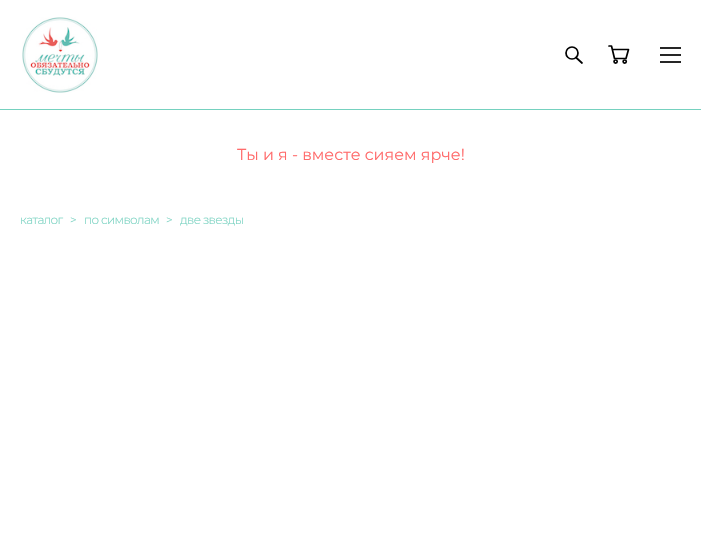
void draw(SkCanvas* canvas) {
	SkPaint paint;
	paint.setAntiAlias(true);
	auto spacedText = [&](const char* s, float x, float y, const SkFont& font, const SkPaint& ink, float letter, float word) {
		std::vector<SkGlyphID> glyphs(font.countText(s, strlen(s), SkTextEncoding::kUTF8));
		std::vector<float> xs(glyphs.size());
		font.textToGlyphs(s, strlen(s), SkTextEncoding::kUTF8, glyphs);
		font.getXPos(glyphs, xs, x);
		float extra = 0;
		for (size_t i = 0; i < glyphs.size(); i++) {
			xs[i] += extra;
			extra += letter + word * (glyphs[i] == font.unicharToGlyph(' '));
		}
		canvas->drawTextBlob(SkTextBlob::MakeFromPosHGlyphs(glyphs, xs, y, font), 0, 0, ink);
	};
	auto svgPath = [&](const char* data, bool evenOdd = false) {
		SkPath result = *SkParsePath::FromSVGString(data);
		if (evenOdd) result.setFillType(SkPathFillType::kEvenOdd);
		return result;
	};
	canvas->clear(0xffffffff);
	canvas->drawImageRect(SkImages::DeferredFromEncodedData(SkData::MakeFromFileName("img1.png")), SkRect::MakeXYWH(22, 17, 76, 76), SkSamplingOptions());
	paint.setStroke(true);
	paint.setStrokeWidth(1.7);
	paint.setColor(0xff000000);
	canvas->drawCircle(572, 53, 6, paint);
	paint.setStrokeCap(SkPaint::kRound_Cap);
	paint.setStrokeJoin(SkPaint::kRound_Join);
	canvas->drawPath(svgPath("M576 57.5L582 63"), paint);
	canvas->drawPath(svgPath("M609 46H611.5L614.5 58.5H626L628.5 49.5H613"), paint);
	paint.setStrokeCap(SkPaint::kButt_Cap);
	paint.setStrokeJoin(SkPaint::kMiter_Join);
	canvas->drawCircle(615.6, 61.6, 1.6, paint);
	canvas->drawCircle(624.7, 61.6, 1.6, paint);
	paint.setStroke(false);
	paint.setColor(0xff262626);
	canvas->drawRect(SkRect::MakeXYWH(660, 47, 21, 2), paint);
	canvas->drawRect(SkRect::MakeXYWH(660, 54, 21, 2), paint);
	canvas->drawRect(SkRect::MakeXYWH(660, 61, 21, 2), paint);
	paint.setColor(0xff75d1bf);
	canvas->drawRect(SkRect::MakeXYWH(0, 109, 701, 1), paint);
	SkFont f1(fontMgr->matchFamilyStyle("Montserrat", SkFontStyle::Normal()), 15.9);
	f1.setSubpixel(true);
	paint.setColor(0xffff6b6b);
	canvas->drawString("Ты и я - вместе сияем ярче!", 237, 160, f1, paint);
	SkFont f2(fontMgr->matchFamilyStyle("Montserrat", SkFontStyle(300, SkFontStyle::kNormal_Width, SkFontStyle::kUpright_Slant)), 12);
	f2.setSubpixel(true);
	paint.setColor(0xff75d1bf);
	spacedText("каталог", 20, 224, f2, paint, -0.6, 0);
	spacedText(">", 70, 224, f2, paint, -0.6, 0);
	spacedText("по символам", 84, 224, f2, paint, -0.6, 0);
	spacedText(">", 166, 224, f2, paint, -0.6, 0);
	spacedText("две звезды", 180, 224, f2, paint, -0.6, 0);
}
